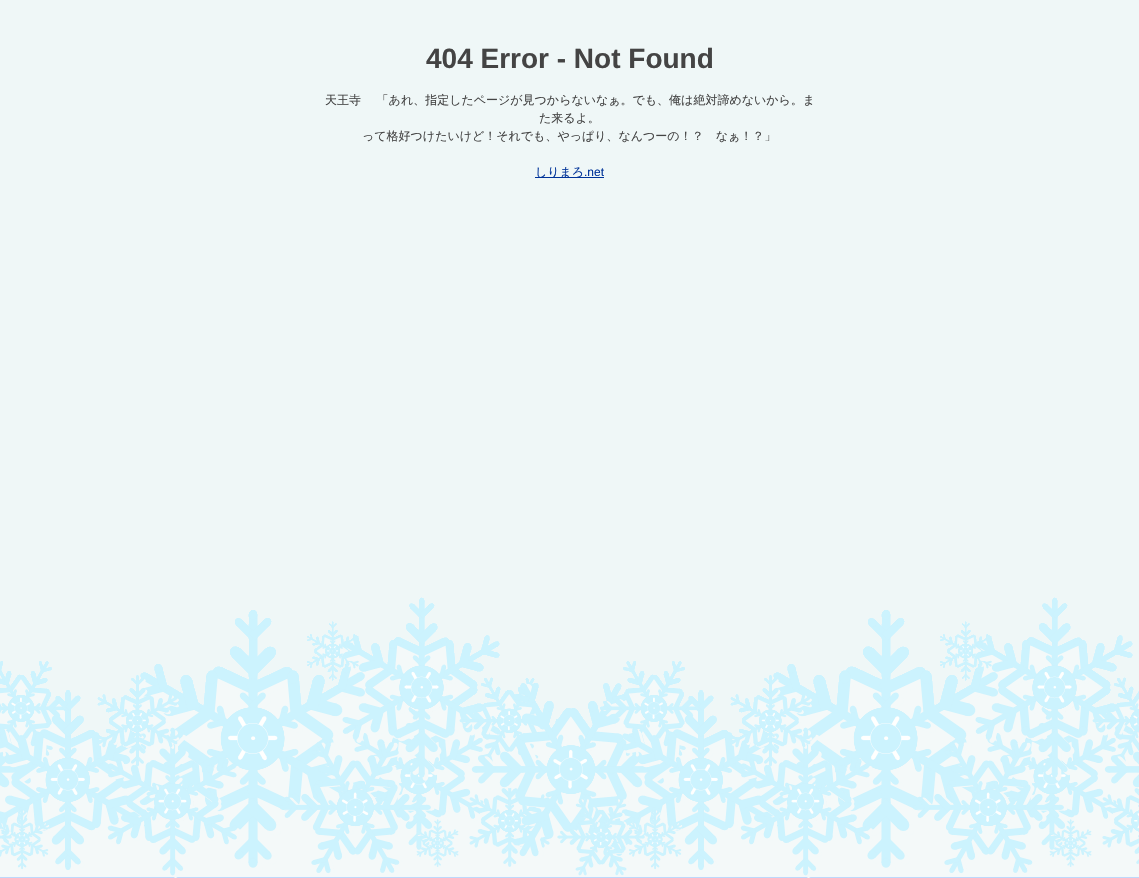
void draw(SkCanvas* canvas) {
	SkPaint paint;
	paint.setAntiAlias(true);
	canvas->clear(0xffeff7f7);
	canvas->drawImageRect(SkImages::DeferredFromEncodedData(SkData::MakeFromFileName("img1.png")), SkRect::MakeXYWH(0, 597, 1139, 281), SkSamplingOptions());
	SkFont f1(fontMgr->matchFamilyStyle("Liberation Sans", SkFontStyle::Bold()), 28);
	f1.setSubpixel(true);
	paint.setColor(0xff444444);
	canvas->drawString("404 Error - Not Found", 426, 68, f1, paint);
	SkFont f2(fontMgr->matchFamilyStyle("WenQuanYi Zen Hei", SkFontStyle(500, SkFontStyle::kNormal_Width, SkFontStyle::kUpright_Slant)), 12);
	f2.setSubpixel(true);
	canvas->drawString("天王寺　 「あれ、指定したページが見つからないなぁ。でも、俺は絶対諦めないから。ま", 325, 104, f2, paint);
	canvas->drawString("た来るよ。", 539, 122, f2, paint);
	canvas->drawString("って格好つけたいけど！それでも、やっぱり、なんつーの！？　なぁ！？」", 362, 140, f2, paint);
	paint.setColor(0xff003399);
	canvas->drawRect(SkRect::MakeXYWH(535, 177, 69, 1), paint);
	canvas->drawString("しりまろ", 535, 176, f2, paint);
	SkFont f3(fontMgr->matchFamilyStyle("Liberation Sans", SkFontStyle::Normal()), 12);
	f3.setSubpixel(true);
	canvas->drawString(".net", 584, 176, f3, paint);
}
